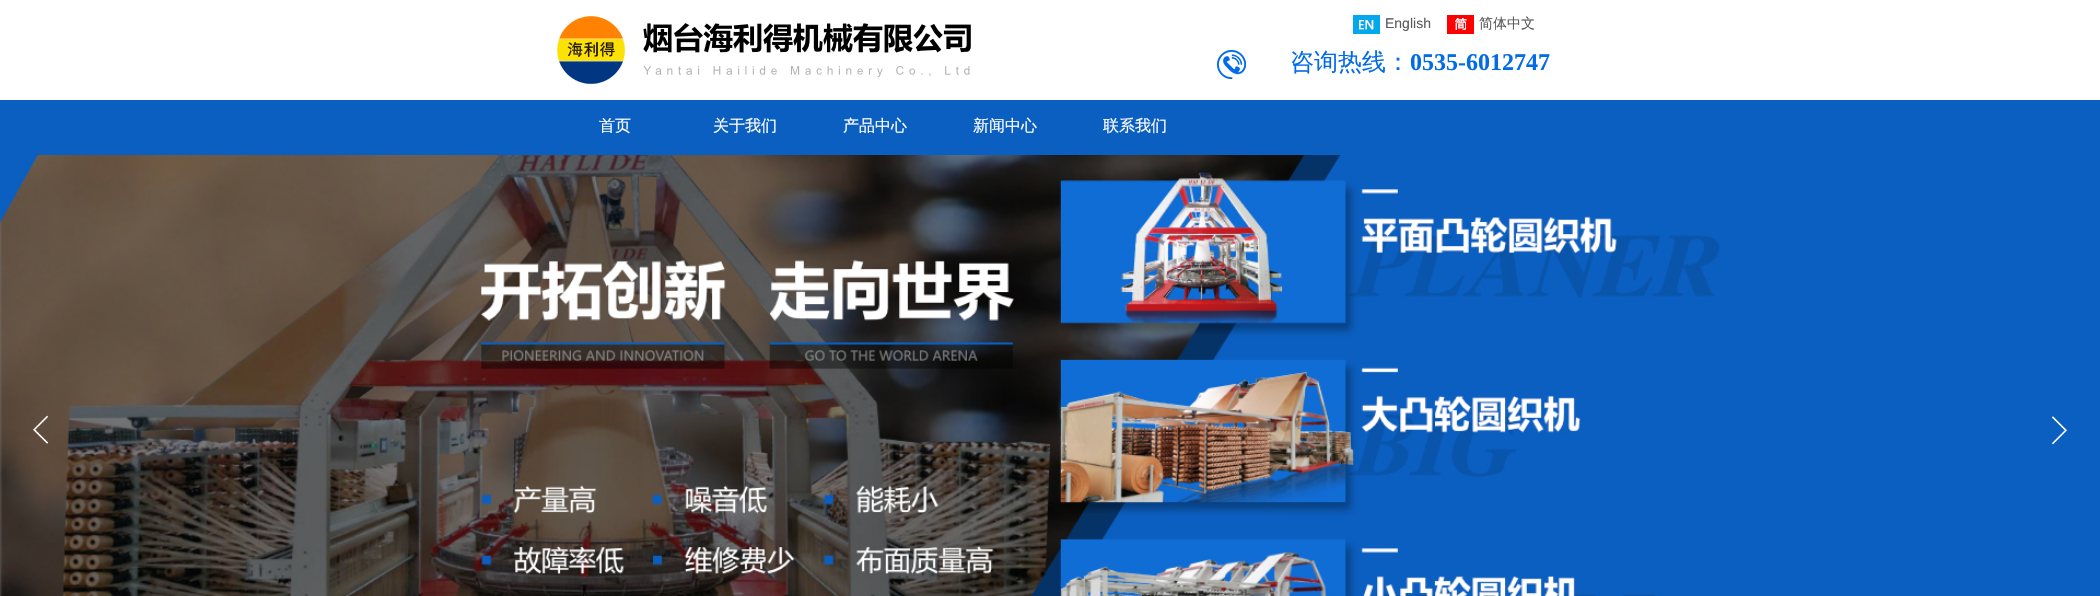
void draw(SkCanvas* canvas) {
	SkPaint paint;
	paint.setAntiAlias(true);
	canvas->clear(0xffffffff);
	canvas->drawImageRect(SkImages::DeferredFromEncodedData(SkData::MakeFromFileName("img1.png")), SkRect::MakeXYWH(557, 16, 414, 68), SkSamplingOptions());
	canvas->drawImageRect(SkImages::DeferredFromEncodedData(SkData::MakeFromFileName("img2.png")), SkRect::MakeXYWH(1353, 15, 27, 19), SkSamplingOptions());
	SkFont f1(fontMgr->matchFamilyStyle("Liberation Sans", SkFontStyle::Normal()), 14);
	f1.setSubpixel(true);
	paint.setColor(0xff5a5a5a);
	canvas->drawString("English", 1385, 28, f1, paint);
	canvas->drawImageRect(SkImages::DeferredFromEncodedData(SkData::MakeFromFileName("img3.png")), SkRect::MakeXYWH(1447, 15, 27, 19), SkSamplingOptions());
	SkFont f2(fontMgr->matchFamilyStyle("WenQuanYi Zen Hei", SkFontStyle(500, SkFontStyle::kNormal_Width, SkFontStyle::kUpright_Slant)), 14);
	f2.setSubpixel(true);
	canvas->drawString("简体中文", 1479, 28, f2, paint);
	canvas->drawImageRect(SkImages::DeferredFromEncodedData(SkData::MakeFromFileName("img4.png")), SkRect::MakeXYWH(1217, 50, 29, 29), SkSamplingOptions());
	SkFont f3(fontMgr->matchFamilyStyle("WenQuanYi Zen Hei", SkFontStyle(500, SkFontStyle::kNormal_Width, SkFontStyle::kUpright_Slant)), 24);
	f3.setSubpixel(true);
	paint.setColor(0xff026ce8);
	canvas->drawString("咨询热线：", 1290, 70, f3, paint);
	SkFont f4(fontMgr->matchFamilyStyle("Liberation Serif", SkFontStyle::Bold()), 24);
	f4.setSubpixel(true);
	canvas->drawString("0535-6012747", 1410, 70, f4, paint);
	paint.setColor(0xff0b5fc0);
	canvas->drawRect(SkRect::MakeXYWH(0, 100, 2100, 55), paint);
	SkFont f5(fontMgr->matchFamilyStyle("WenQuanYi Zen Hei", SkFontStyle(500, SkFontStyle::kNormal_Width, SkFontStyle::kUpright_Slant)), 16);
	f5.setSubpixel(true);
	paint.setColor(0xffffffff);
	canvas->drawString("首页", 599, 131, f5, paint);
	canvas->drawString("关于我们", 713, 131, f5, paint);
	canvas->drawString("产品中心", 843, 131, f5, paint);
	canvas->drawString("新闻中心", 973, 131, f5, paint);
	canvas->drawString("联系我们", 1103, 131, f5, paint);
	canvas->drawImageRect(SkImages::DeferredFromEncodedData(SkData::MakeFromFileName("img5.png")), SkRect::MakeXYWH(0, 155, 2100, 441), SkSamplingOptions());
	canvas->drawImageRect(SkImages::DeferredFromEncodedData(SkData::MakeFromFileName("img6.png")), SkRect::MakeXYWH(32, 415, 17, 29), SkSamplingOptions());
	canvas->drawImageRect(SkImages::DeferredFromEncodedData(SkData::MakeFromFileName("img7.png")), SkRect::MakeXYWH(2051, 416, 17, 29), SkSamplingOptions());
}
